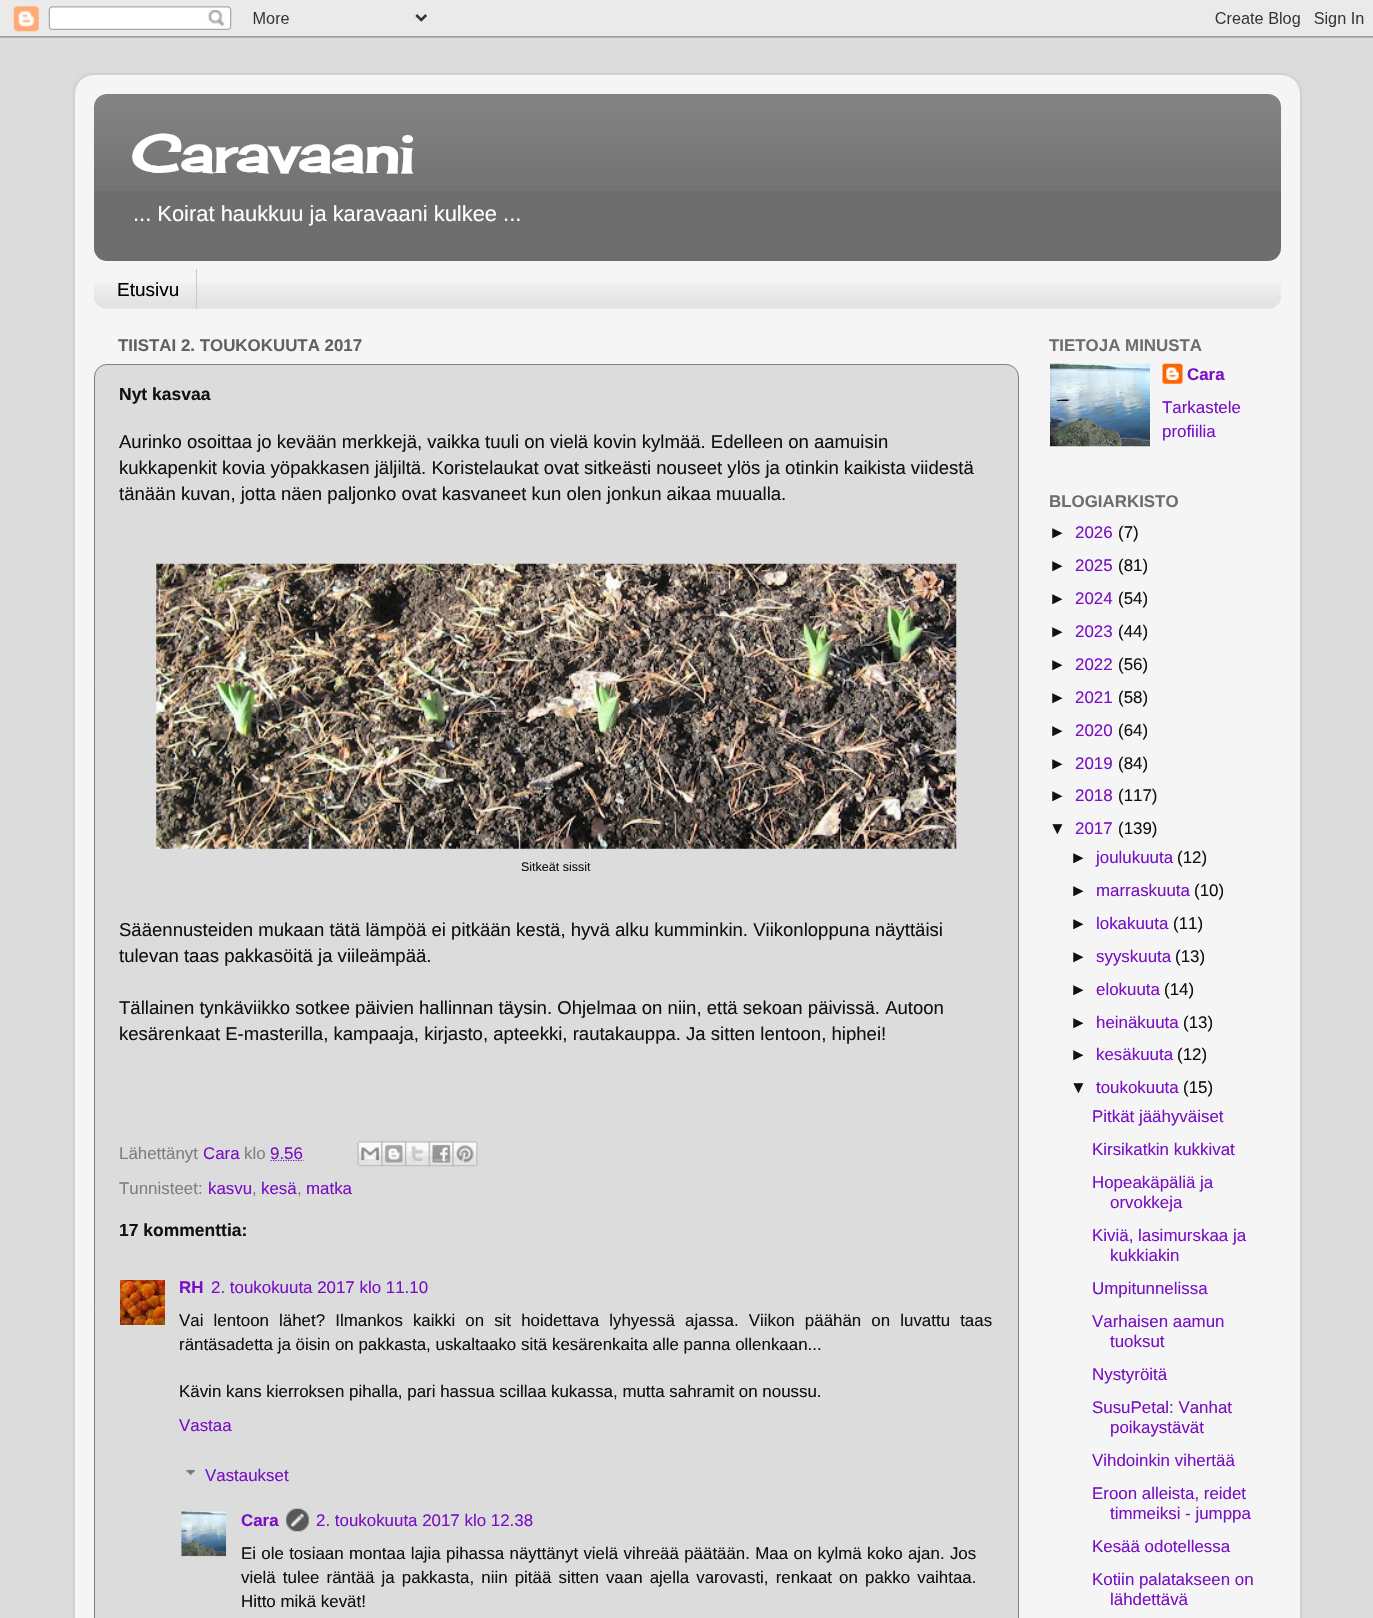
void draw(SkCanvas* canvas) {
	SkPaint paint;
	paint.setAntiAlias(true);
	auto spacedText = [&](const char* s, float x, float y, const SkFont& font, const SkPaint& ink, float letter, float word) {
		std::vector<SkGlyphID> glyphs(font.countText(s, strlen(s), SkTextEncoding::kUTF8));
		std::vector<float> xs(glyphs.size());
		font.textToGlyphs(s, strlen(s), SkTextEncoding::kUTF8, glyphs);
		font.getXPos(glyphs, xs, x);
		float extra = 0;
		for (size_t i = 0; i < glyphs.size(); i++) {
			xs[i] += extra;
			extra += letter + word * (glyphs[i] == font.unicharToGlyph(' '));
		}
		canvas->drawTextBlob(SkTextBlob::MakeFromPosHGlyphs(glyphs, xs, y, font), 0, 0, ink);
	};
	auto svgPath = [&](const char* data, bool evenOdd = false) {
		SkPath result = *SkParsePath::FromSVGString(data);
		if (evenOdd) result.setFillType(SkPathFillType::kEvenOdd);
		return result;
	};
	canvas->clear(0xffdcdcdc);
	canvas->drawImageRect(SkImages::DeferredFromEncodedData(SkData::MakeFromFileName("img1.png")), SkRect::MakeXYWH(0, 0, 1373, 38), SkSamplingOptions());
	canvas->save();
	canvas->clipPath(svgPath("M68 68H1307V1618H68ZM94 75H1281C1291.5 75 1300 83.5 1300 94V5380C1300 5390.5 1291.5 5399 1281 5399H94C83.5 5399 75 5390.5 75 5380V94C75 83.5 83.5 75 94 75Z", true), true);
	paint.setColor(0x26000000);
	paint.setMaskFilter(SkMaskFilter::MakeBlur(kNormal_SkBlurStyle, 2));
	canvas->drawRoundRect(SkRect::MakeXYWH(75, 75, 1225, 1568), 19, 19, paint);
	paint.setMaskFilter(nullptr);
	canvas->restore();
	canvas->drawImageRect(SkImages::DeferredFromEncodedData(SkData::MakeFromFileName("img2.png")), SkRect::MakeXYWH(75, 75, 1225, 1543), SkSamplingOptions());
	paint.setColor(0xff6e6e6e);
	canvas->drawRoundRect(SkRect::MakeXYWH(94, 94, 1187, 167), 13, 13, paint);
	canvas->drawImageRect(SkImages::DeferredFromEncodedData(SkData::MakeFromFileName("img3.png")), SkRect::MakeXYWH(94, 94, 1187, 97), SkSamplingOptions());
	SkFont f1(fontMgr->matchFamilyStyle("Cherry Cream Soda", SkFontStyle::Bold()), 52.5);
	f1.setSubpixel(true);
	paint.setColor(0xffffffff);
	canvas->drawString("Caravaani", 131, 173, f1, paint);
	SkFont f2(fontMgr->matchFamilyStyle("Liberation Sans", SkFontStyle::Normal()), 21.9);
	f2.setSubpixel(true);
	canvas->drawString("... Koirat haukkuu ja karavaani kulkee ...", 133, 221, f2, paint);
	canvas->drawImageRect(SkImages::DeferredFromEncodedData(SkData::MakeFromFileName("img4.png")), SkRect::MakeXYWH(94, 282, 1187, 27), SkSamplingOptions());
	paint.setColor(0xffcacaca);
	canvas->drawRect(SkRect::MakeXYWH(196, 269, 1, 40), paint);
	SkFont f3(fontMgr->matchFamilyStyle("Liberation Sans", SkFontStyle::Normal()), 19);
	f3.setSubpixel(true);
	paint.setColor(0xff000000);
	canvas->drawString("Etusivu", 117, 296, f3, paint);
	SkFont f4(fontMgr->matchFamilyStyle("Liberation Sans", SkFontStyle::Bold()), 16.9);
	f4.setSubpixel(true);
	paint.setColor(0xff616161);
	canvas->drawString("TIISTAI 2. TOUKOKUUTA 2017", 118, 351, f4, paint);
	paint.setColor(0xffdcdcdc);
	canvas->drawRoundRect(SkRect::MakeXYWH(94.5, 364.5, 924, 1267), 12.5, 12.5, paint);
	paint.setStroke(true);
	paint.setStrokeWidth(1);
	paint.setColor(0xff7f7f7f);
	canvas->drawRoundRect(SkRect::MakeXYWH(94.5, 364.5, 924, 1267), 12.5, 12.5, paint);
	SkFont f5(fontMgr->matchFamilyStyle("Liberation Sans", SkFontStyle::Bold()), 17.5);
	f5.setSubpixel(true);
	paint.setStroke(false);
	paint.setColor(0xff111111);
	canvas->drawString("Nyt kasvaa", 119, 400, f5, paint);
	SkFont f6(fontMgr->matchFamilyStyle("Liberation Sans", SkFontStyle::Normal()), 18.55);
	f6.setSubpixel(true);
	canvas->drawString("Aurinko osoittaa jo kevään merkkejä, vaikka tuuli on vielä kovin kylmää. Edelleen on aamuisin", 119, 448, f6, paint);
	canvas->drawString("kukkapenkit kovia yöpakkasen jäljiltä. Koristelaukat ovat sitkeästi nouseet ylös ja otinkin kaikista viidestä", 119, 474, f6, paint);
	canvas->drawString("tänään kuvan, jotta näen paljonko ovat kasvaneet kun olen jonkun aikaa muualla.", 119, 500, f6, paint);
	canvas->drawImageRect(SkImages::DeferredFromEncodedData(SkData::MakeFromFileName("img5.png")), SkRect::MakeXYWH(156, 563, 801, 286), SkSamplingOptions());
	SkFont f7(fontMgr->matchFamilyStyle("Liberation Sans", SkFontStyle::Normal()), 12.5);
	f7.setSubpixel(true);
	canvas->drawString("Sitkeät sissit", 521, 871, f7, paint);
	canvas->drawString("Sääennusteiden mukaan tätä lämpöä ei pitkään kestä, hyvä alku kumminkin. Viikonloppuna näyttäisi", 119, 936, f6, paint);
	canvas->drawString("tulevan taas pakkasöitä ja viileämpää.", 119, 962, f6, paint);
	canvas->drawString("Tällainen tynkäviikko sotkee päivien hallinnan täysin. Ohjelmaa on niin, että sekoan päivissä. Autoon", 119, 1014, f6, paint);
	canvas->drawString("kesärenkaat E-masterilla, kampaaja, kirjasto, apteekki, rautakauppa. Ja sitten lentoon, hiphei!", 119, 1040, f6, paint);
	SkFont f8(fontMgr->matchFamilyStyle("Liberation Sans", SkFontStyle::Normal()), 16.9);
	f8.setSubpixel(true);
	paint.setColor(0xff7f7f7f);
	canvas->drawString("Lähettänyt", 119, 1159, f8, paint);
	paint.setColor(0xff7a10c5);
	canvas->drawString("Cara", 203, 1159, f8, paint);
	paint.setColor(0xff7f7f7f);
	canvas->drawString("klo", 244, 1159, f8, paint);
	paint.setStroke(true);
	paint.setStrokeWidth(1.2);
	paint.setColor(0xff7a10c5);
	paint.setPathEffect(SkDashPathEffect::Make({{1.25f, 1.25f}}, 0));
	canvas->drawPath(svgPath("M270.5 1160.5H303.5"), paint);
	paint.setPathEffect(nullptr);
	paint.setStroke(false);
	canvas->drawString("9.56", 270, 1159, f8, paint);
	canvas->drawImageRect(SkImages::DeferredFromEncodedData(SkData::MakeFromFileName("img6.png")), SkRect::MakeXYWH(357, 1141, 26, 26), SkSamplingOptions());
	canvas->drawImageRect(SkImages::DeferredFromEncodedData(SkData::MakeFromFileName("img7.png")), SkRect::MakeXYWH(381, 1141, 26, 26), SkSamplingOptions());
	canvas->drawImageRect(SkImages::DeferredFromEncodedData(SkData::MakeFromFileName("img8.png")), SkRect::MakeXYWH(405, 1141, 25, 26), SkSamplingOptions());
	canvas->drawImageRect(SkImages::DeferredFromEncodedData(SkData::MakeFromFileName("img9.png")), SkRect::MakeXYWH(428, 1141, 26, 26), SkSamplingOptions());
	canvas->drawImageRect(SkImages::DeferredFromEncodedData(SkData::MakeFromFileName("img10.png")), SkRect::MakeXYWH(452, 1141, 26, 26), SkSamplingOptions());
	paint.setColor(0xff7f7f7f);
	canvas->drawString("Tunnisteet:", 119, 1194, f8, paint);
	paint.setColor(0xff7a10c5);
	canvas->drawString("kasvu", 208, 1194, f8, paint);
	paint.setColor(0xff7f7f7f);
	canvas->drawString(",", 252, 1194, f8, paint);
	paint.setColor(0xff7a10c5);
	canvas->drawString("kesä", 261, 1194, f8, paint);
	paint.setColor(0xff7f7f7f);
	canvas->drawString(",", 297, 1194, f8, paint);
	paint.setColor(0xff7a10c5);
	canvas->drawString("matka", 306, 1194, f8, paint);
	paint.setColor(0xff111111);
	canvas->drawString("17 kommenttia:", 119, 1236, f5, paint);
	canvas->drawImageRect(SkImages::DeferredFromEncodedData(SkData::MakeFromFileName("img11.png")), SkRect::MakeXYWH(120, 1280, 45, 45), SkSamplingOptions());
	paint.setColor(0xff7a10c5);
	canvas->drawString("RH", 179, 1293, f4, paint);
	canvas->drawString("2. toukokuuta 2017 klo 11.10", 211, 1293, f8, paint);
	paint.setColor(0xff111111);
	spacedText("Vai lentoon lähet? Ilmankos kaikki on sit hoidettava lyhyessä ajassa. Viikon päähän on luvattu taas", 179, 1326, f8, paint, 0, 5.4);
	canvas->drawString("räntäsadetta ja öisin on pakkasta, uskaltaako sitä kesärenkaita alle panna ollenkaan...", 179, 1350, f8, paint);
	canvas->drawString("Kävin kans kierroksen pihalla, pari hassua scillaa kukassa, mutta sahramit on noussu.", 179, 1397, f8, paint);
	paint.setColor(0xff7a10c5);
	canvas->drawString("Vastaa", 179, 1431, f8, paint);
	canvas->drawImageRect(SkImages::DeferredFromEncodedData(SkData::MakeFromFileName("img12.png")), SkRect::MakeXYWH(186, 1469, 9, 7), SkSamplingOptions());
	canvas->drawString("Vastaukset", 205, 1481, f8, paint);
	canvas->drawImageRect(SkImages::DeferredFromEncodedData(SkData::MakeFromFileName("img13.png")), SkRect::MakeXYWH(181, 1511, 46, 46), SkSamplingOptions());
	canvas->drawString("Cara", 241, 1526, f4, paint);
	canvas->drawImageRect(SkImages::DeferredFromEncodedData(SkData::MakeFromFileName("img14.png")), SkRect::MakeXYWH(286, 1508, 23, 24), SkSamplingOptions());
	canvas->drawString("2. toukokuuta 2017 klo 12.38", 316, 1526, f8, paint);
	paint.setColor(0xff111111);
	spacedText("Ei ole tosiaan montaa lajia pihassa näyttänyt vielä vihreää päätään. Maa on kylmä koko ajan. Jos", 241, 1559, f8, paint, 0, 0.6);
	spacedText("vielä tulee räntää ja pakkasta, niin pitää sitten vaan ajella varovasti, renkaat on pakko vaihtaa.", 241, 1583, f8, paint, 0, 2.4);
	canvas->drawString("Hitto mikä kevät!", 241, 1607, f8, paint);
	paint.setColor(0xff6e6e6e);
	canvas->drawString("TIETOJA MINUSTA", 1049, 351, f4, paint);
	canvas->drawImageRect(SkImages::DeferredFromEncodedData(SkData::MakeFromFileName("img15.png")), SkRect::MakeXYWH(1050, 363, 100, 84), SkSamplingOptions());
	canvas->drawImageRect(SkImages::DeferredFromEncodedData(SkData::MakeFromFileName("img16.png")), SkRect::MakeXYWH(1162, 363, 21, 21), SkSamplingOptions());
	paint.setColor(0xff7a10c5);
	canvas->drawString("Cara", 1187, 380, f4, paint);
	canvas->drawString("Tarkastele", 1162, 413, f8, paint);
	canvas->drawString("profiilia", 1162, 437, f8, paint);
	paint.setColor(0xff6e6e6e);
	canvas->drawString("BLOGIARKISTO", 1049, 507, f4, paint);
	paint.setColor(0xff111111);
	canvas->drawString("►", 1049, 538, f8, paint);
	paint.setColor(0xff7a10c5);
	canvas->drawString("2026", 1075, 538, f8, paint);
	paint.setColor(0xff111111);
	canvas->drawString("(7)", 1118, 538, f8, paint);
	canvas->drawString("►", 1049, 571, f8, paint);
	paint.setColor(0xff7a10c5);
	canvas->drawString("2025", 1075, 571, f8, paint);
	paint.setColor(0xff111111);
	canvas->drawString("(81)", 1118, 571, f8, paint);
	canvas->drawString("►", 1049, 604, f8, paint);
	paint.setColor(0xff7a10c5);
	canvas->drawString("2024", 1075, 604, f8, paint);
	paint.setColor(0xff111111);
	canvas->drawString("(54)", 1118, 604, f8, paint);
	canvas->drawString("►", 1049, 637, f8, paint);
	paint.setColor(0xff7a10c5);
	canvas->drawString("2023", 1075, 637, f8, paint);
	paint.setColor(0xff111111);
	canvas->drawString("(44)", 1118, 637, f8, paint);
	canvas->drawString("►", 1049, 670, f8, paint);
	paint.setColor(0xff7a10c5);
	canvas->drawString("2022", 1075, 670, f8, paint);
	paint.setColor(0xff111111);
	canvas->drawString("(56)", 1118, 670, f8, paint);
	canvas->drawString("►", 1049, 703, f8, paint);
	paint.setColor(0xff7a10c5);
	canvas->drawString("2021", 1075, 703, f8, paint);
	paint.setColor(0xff111111);
	canvas->drawString("(58)", 1118, 703, f8, paint);
	canvas->drawString("►", 1049, 736, f8, paint);
	paint.setColor(0xff7a10c5);
	canvas->drawString("2020", 1075, 736, f8, paint);
	paint.setColor(0xff111111);
	canvas->drawString("(64)", 1118, 736, f8, paint);
	canvas->drawString("►", 1049, 769, f8, paint);
	paint.setColor(0xff7a10c5);
	canvas->drawString("2019", 1075, 769, f8, paint);
	paint.setColor(0xff111111);
	canvas->drawString("(84)", 1118, 769, f8, paint);
	canvas->drawString("►", 1049, 801, f8, paint);
	paint.setColor(0xff7a10c5);
	canvas->drawString("2018", 1075, 801, f8, paint);
	paint.setColor(0xff111111);
	canvas->drawString("(117)", 1118, 801, f8, paint);
	canvas->drawString("▼", 1049, 834, f8, paint);
	paint.setColor(0xff7a10c5);
	canvas->drawString("2017", 1075, 834, f8, paint);
	paint.setColor(0xff111111);
	canvas->drawString("(139)", 1118, 834, f8, paint);
	canvas->drawString("►", 1070, 863, f8, paint);
	paint.setColor(0xff7a10c5);
	canvas->drawString("joulukuuta", 1096, 863, f8, paint);
	paint.setColor(0xff111111);
	canvas->drawString("(12)", 1177, 863, f8, paint);
	canvas->drawString("►", 1070, 896, f8, paint);
	paint.setColor(0xff7a10c5);
	canvas->drawString("marraskuuta", 1096, 896, f8, paint);
	paint.setColor(0xff111111);
	canvas->drawString("(10)", 1194, 896, f8, paint);
	canvas->drawString("►", 1070, 929, f8, paint);
	paint.setColor(0xff7a10c5);
	canvas->drawString("lokakuuta", 1096, 929, f8, paint);
	paint.setColor(0xff111111);
	canvas->drawString("(11)", 1173, 929, f8, paint);
	canvas->drawString("►", 1070, 962, f8, paint);
	paint.setColor(0xff7a10c5);
	canvas->drawString("syyskuuta", 1096, 962, f8, paint);
	paint.setColor(0xff111111);
	canvas->drawString("(13)", 1175, 962, f8, paint);
	canvas->drawString("►", 1070, 995, f8, paint);
	paint.setColor(0xff7a10c5);
	canvas->drawString("elokuuta", 1096, 995, f8, paint);
	paint.setColor(0xff111111);
	canvas->drawString("(14)", 1164, 995, f8, paint);
	canvas->drawString("►", 1070, 1028, f8, paint);
	paint.setColor(0xff7a10c5);
	canvas->drawString("heinäkuuta", 1096, 1028, f8, paint);
	paint.setColor(0xff111111);
	canvas->drawString("(13)", 1183, 1028, f8, paint);
	canvas->drawString("►", 1070, 1060, f8, paint);
	paint.setColor(0xff7a10c5);
	canvas->drawString("kesäkuuta", 1096, 1060, f8, paint);
	paint.setColor(0xff111111);
	canvas->drawString("(12)", 1177, 1060, f8, paint);
	canvas->drawString("▼", 1070, 1093, f8, paint);
	paint.setColor(0xff7a10c5);
	canvas->drawString("toukokuuta", 1096, 1093, f8, paint);
	paint.setColor(0xff111111);
	canvas->drawString("(15)", 1183, 1093, f8, paint);
	paint.setColor(0xff7a10c5);
	canvas->drawString("Pitkät jäähyväiset", 1092, 1122, f8, paint);
	canvas->drawString("Kirsikatkin kukkivat", 1092, 1155, f8, paint);
	canvas->drawString("Hopeakäpäliä ja", 1092, 1188, f8, paint);
	canvas->drawString("orvokkeja", 1110, 1208, f8, paint);
	canvas->drawString("Kiviä, lasimurskaa ja", 1092, 1241, f8, paint);
	canvas->drawString("kukkiakin", 1110, 1261, f8, paint);
	canvas->drawString("Umpitunnelissa", 1092, 1294, f8, paint);
	canvas->drawString("Varhaisen aamun", 1092, 1327, f8, paint);
	canvas->drawString("tuoksut", 1110, 1347, f8, paint);
	canvas->drawString("Nystyröitä", 1092, 1380, f8, paint);
	canvas->drawString("SusuPetal: Vanhat", 1092, 1413, f8, paint);
	canvas->drawString("poikaystävät", 1110, 1433, f8, paint);
	canvas->drawString("Vihdoinkin vihertää", 1092, 1466, f8, paint);
	canvas->drawString("Eroon alleista, reidet", 1092, 1499, f8, paint);
	canvas->drawString("timmeiksi - jumppa", 1110, 1519, f8, paint);
	canvas->drawString("Kesää odotellessa", 1092, 1552, f8, paint);
	canvas->drawString("Kotiin palatakseen on", 1092, 1585, f8, paint);
	canvas->drawString("lähdettävä", 1110, 1605, f8, paint);
}
